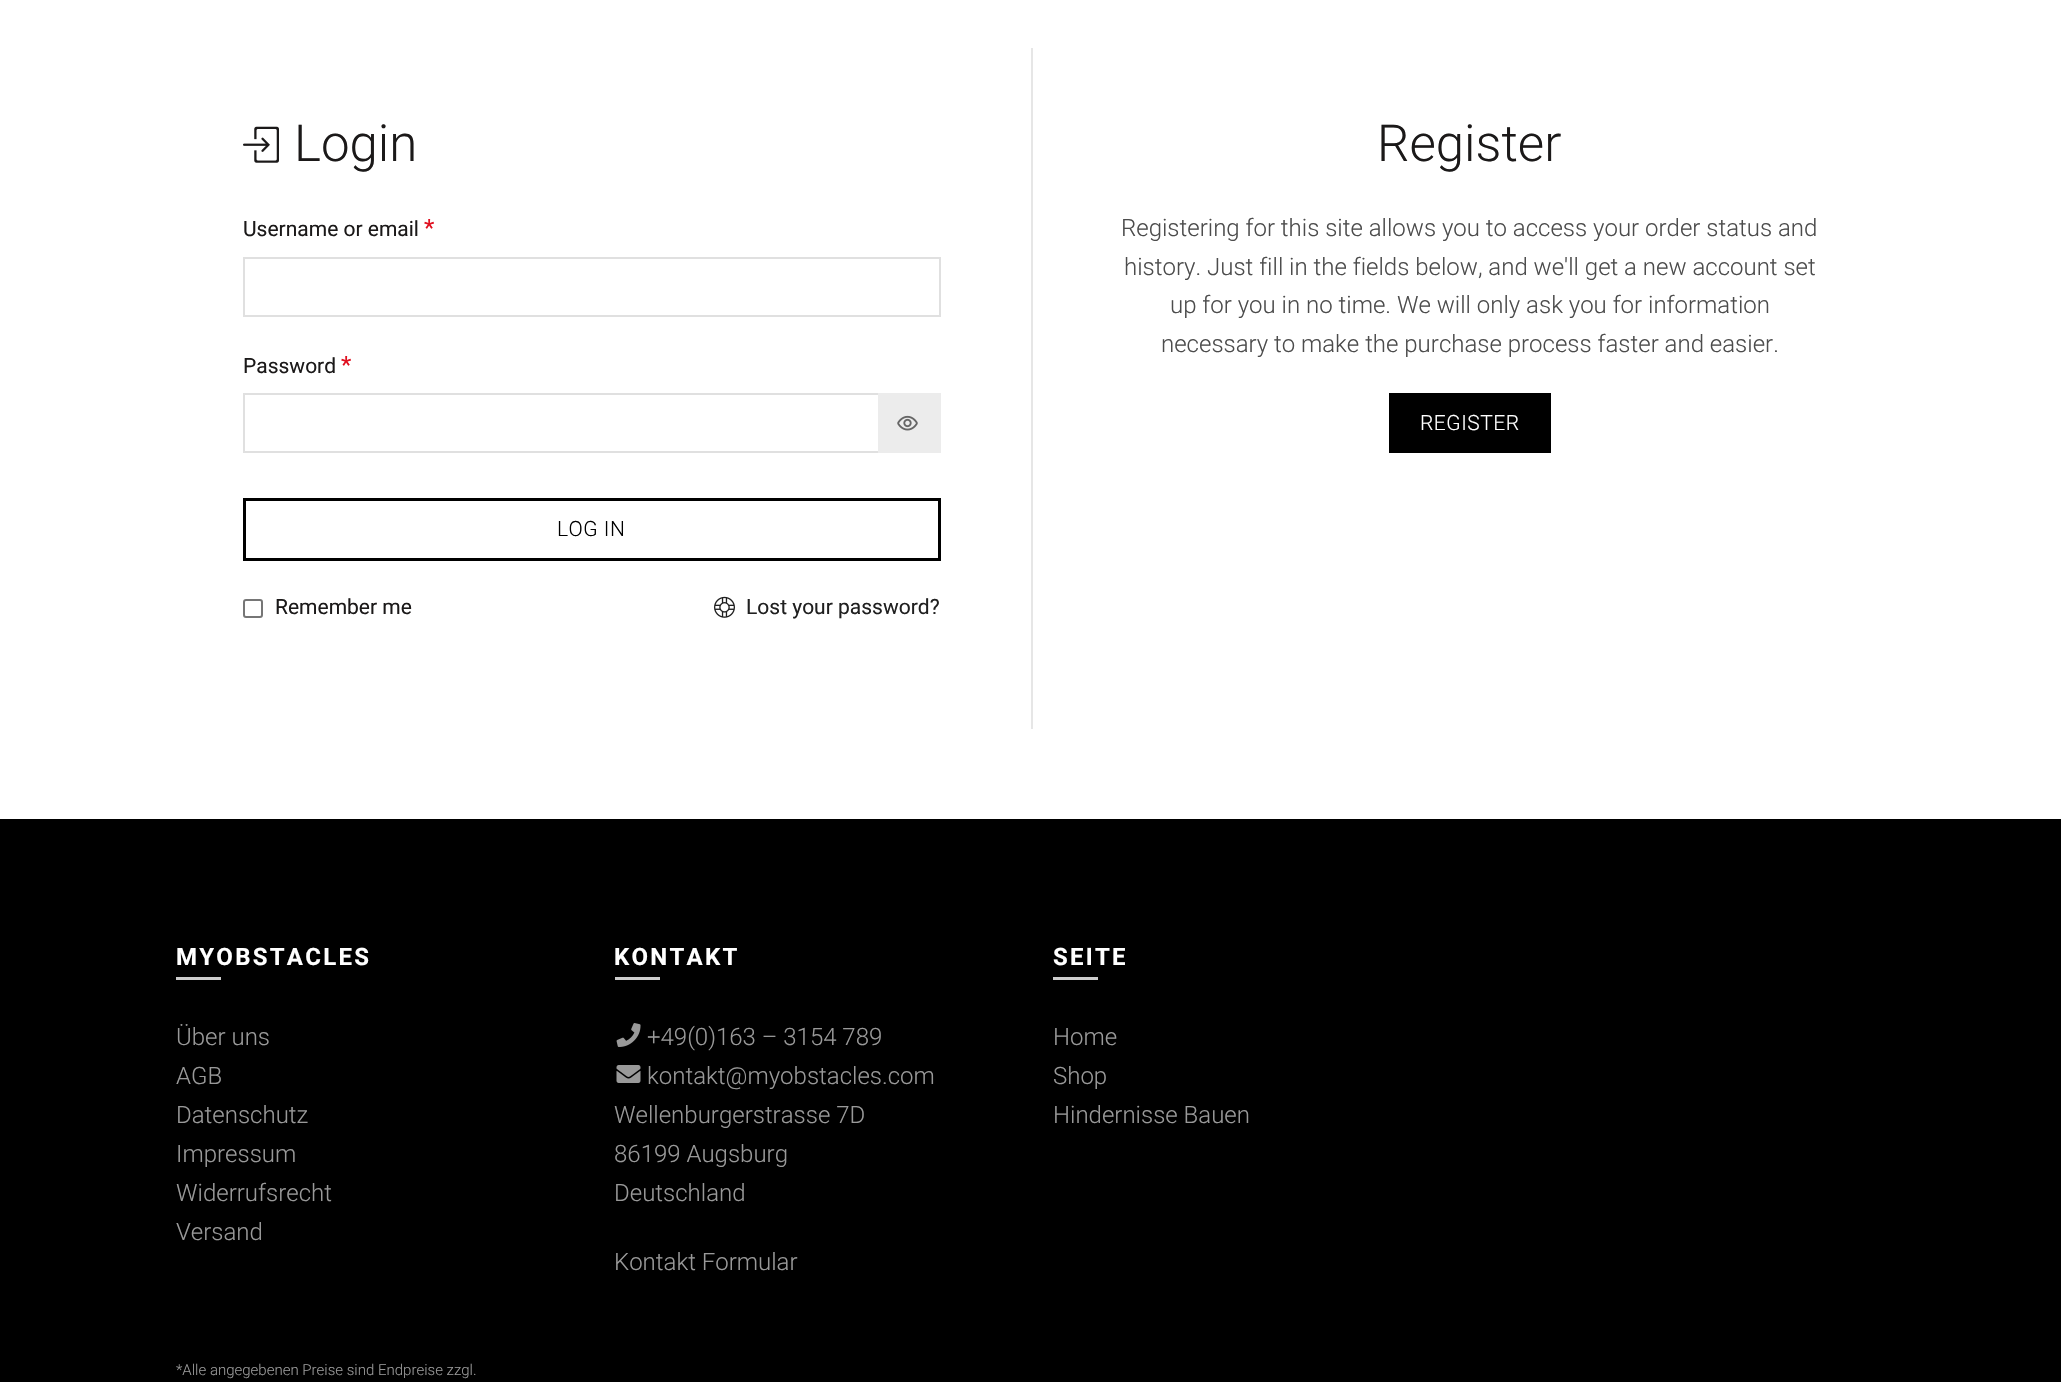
void draw(SkCanvas* canvas) {
	SkPaint paint;
	paint.setAntiAlias(true);
	auto spacedText = [&](const char* s, float x, float y, const SkFont& font, const SkPaint& ink, float letter, float word) {
		std::vector<SkGlyphID> glyphs(font.countText(s, strlen(s), SkTextEncoding::kUTF8));
		std::vector<float> xs(glyphs.size());
		font.textToGlyphs(s, strlen(s), SkTextEncoding::kUTF8, glyphs);
		font.getXPos(glyphs, xs, x);
		float extra = 0;
		for (size_t i = 0; i < glyphs.size(); i++) {
			xs[i] += extra;
			extra += letter + word * (glyphs[i] == font.unicharToGlyph(' '));
		}
		canvas->drawTextBlob(SkTextBlob::MakeFromPosHGlyphs(glyphs, xs, y, font), 0, 0, ink);
	};
	canvas->clear(0xffffffff);
	canvas->drawImageRect(SkImages::DeferredFromEncodedData(SkData::MakeFromFileName("img1.png")), SkRect::MakeXYWH(243, 126, 36, 37), SkSamplingOptions());
	SkFont f1(fontMgr->matchFamilyStyle("Roboto", SkFontStyle(300, SkFontStyle::kNormal_Width, SkFontStyle::kUpright_Slant)), 51);
	f1.setSubpixel(true);
	paint.setColor(0xff1b1919);
	canvas->drawString("Login", 294, 161, f1, paint);
	SkFont f2(fontMgr->matchFamilyStyle("Roboto", SkFontStyle::Normal()), 21);
	f2.setSubpixel(true);
	canvas->drawString("Username or email", 243, 236, f2, paint);
	SkFont f3(fontMgr->matchFamilyStyle("Roboto", SkFontStyle::Normal()), 24);
	f3.setSubpixel(true);
	paint.setColor(0xffe01020);
	canvas->drawString("*", 424, 236, f3, paint);
	paint.setStroke(true);
	paint.setStrokeWidth(2);
	paint.setColor(0xffe0e0e0);
	canvas->drawRect(SkRect::MakeXYWH(244, 258, 696, 58), paint);
	paint.setStroke(false);
	paint.setColor(0xff1b1919);
	canvas->drawString("Password", 243, 373, f2, paint);
	paint.setColor(0xffe01020);
	canvas->drawString("*", 341, 373, f3, paint);
	paint.setStroke(true);
	paint.setColor(0xffe0e0e0);
	canvas->drawRect(SkRect::MakeXYWH(244, 394, 696, 58), paint);
	paint.setStroke(false);
	paint.setColor(0xffececec);
	canvas->drawRect(SkRect::MakeXYWH(878, 393, 63, 60), paint);
	canvas->drawImageRect(SkImages::DeferredFromEncodedData(SkData::MakeFromFileName("img2.png")), SkRect::MakeXYWH(897, 415, 21, 16), SkSamplingOptions());
	paint.setStroke(true);
	paint.setStrokeWidth(3);
	paint.setColor(0xff000000);
	canvas->drawRect(SkRect::MakeXYWH(244.5, 499.5, 695, 60), paint);
	SkFont f4(fontMgr->matchFamilyStyle("Roboto", SkFontStyle(300, SkFontStyle::kNormal_Width, SkFontStyle::kUpright_Slant)), 21);
	f4.setSubpixel(true);
	paint.setStroke(false);
	spacedText("LOG IN", 557, 536, f4, paint, 0.5, 0);
	paint.setStroke(true);
	paint.setStrokeWidth(2);
	paint.setColor(0xff767676);
	canvas->drawRoundRect(SkRect::MakeXYWH(244, 600, 18, 17), 2, 2, paint);
	paint.setStroke(false);
	paint.setColor(0xff1b1919);
	canvas->drawString("Remember me", 275, 614, f2, paint);
	canvas->drawImageRect(SkImages::DeferredFromEncodedData(SkData::MakeFromFileName("img3.png")), SkRect::MakeXYWH(714, 596, 21, 22), SkSamplingOptions());
	paint.setColor(0xff202020);
	canvas->drawString("Lost your password?", 746, 614, f2, paint);
	paint.setColor(0xffe6e6e6);
	canvas->drawRect(SkRect::MakeXYWH(1031, 48, 2, 681), paint);
	paint.setColor(0xff1b1919);
	canvas->drawString("Register", 1377, 161, f1, paint);
	SkFont f5(fontMgr->matchFamilyStyle("Roboto", SkFontStyle(300, SkFontStyle::kNormal_Width, SkFontStyle::kUpright_Slant)), 24);
	f5.setSubpixel(true);
	paint.setColor(0xff4c4c4c);
	canvas->drawString("Registering for this site allows you to access your order status and", 1121, 236, f5, paint);
	canvas->drawString("history. Just fill in the fields below, and we'll get a new account set", 1124, 275, f5, paint);
	canvas->drawString("up for you in no time. We will only ask you for information", 1170, 313, f5, paint);
	canvas->drawString("necessary to make the purchase process faster and easier.", 1161, 352, f5, paint);
	paint.setColor(0xff000000);
	canvas->drawRect(SkRect::MakeXYWH(1389, 393, 162, 60), paint);
	paint.setColor(0xffffffff);
	spacedText("REGISTER", 1420, 430, f4, paint, 0.5, 0);
	paint.setColor(0xff000000);
	canvas->drawRect(SkRect::MakeXYWH(0, 819, 2061, 563), paint);
	SkFont f6(fontMgr->matchFamilyStyle("Roboto", SkFontStyle::Bold()), 24);
	f6.setSubpixel(true);
	paint.setColor(0xffffffff);
	spacedText("MYOBSTACLES", 176, 965, f6, paint, 2.25, 0);
	paint.setColor(0xffcccccc);
	canvas->drawRect(SkRect::MakeXYWH(176, 977, 45, 3), paint);
	paint.setColor(0xff999999);
	canvas->drawString("Über uns", 176, 1045, f5, paint);
	canvas->drawString("AGB", 176, 1084, f5, paint);
	canvas->drawString("Datenschutz", 176, 1123, f5, paint);
	canvas->drawString("Impressum", 176, 1162, f5, paint);
	canvas->drawString("Widerrufsrecht", 176, 1201, f5, paint);
	canvas->drawString("Versand", 176, 1240, f5, paint);
	SkFont f7(fontMgr->matchFamilyStyle("Roboto", SkFontStyle(300, SkFontStyle::kNormal_Width, SkFontStyle::kUpright_Slant)), 15);
	f7.setSubpixel(true);
	canvas->drawString("*Alle angegebenen Preise sind Endpreise zzgl.", 176, 1375, f7, paint);
	paint.setColor(0xffffffff);
	spacedText("KONTAKT", 614, 965, f6, paint, 2.25, 0);
	paint.setColor(0xffcccccc);
	canvas->drawRect(SkRect::MakeXYWH(615, 977, 45, 3), paint);
	canvas->drawImageRect(SkImages::DeferredFromEncodedData(SkData::MakeFromFileName("img4.png")), SkRect::MakeXYWH(616, 1023, 25, 24), SkSamplingOptions());
	paint.setColor(0xff999999);
	canvas->drawString("+49(0)163 – 3154 789", 647, 1045, f5, paint);
	canvas->drawImageRect(SkImages::DeferredFromEncodedData(SkData::MakeFromFileName("img5.png")), SkRect::MakeXYWH(616, 1065, 25, 18), SkSamplingOptions());
	canvas->drawString("kontakt@myobstacles.com", 647, 1084, f5, paint);
	canvas->drawString("Wellenburgerstrasse 7D", 614, 1123, f5, paint);
	canvas->drawString("86199 Augsburg", 614, 1162, f5, paint);
	canvas->drawString("Deutschland", 614, 1201, f5, paint);
	canvas->drawString("Kontakt Formular", 614, 1270, f5, paint);
	paint.setColor(0xffffffff);
	spacedText("SEITE", 1053, 965, f6, paint, 2.25, 0);
	paint.setColor(0xffcccccc);
	canvas->drawRect(SkRect::MakeXYWH(1053, 977, 45, 3), paint);
	paint.setColor(0xff999999);
	canvas->drawString("Home", 1053, 1045, f5, paint);
	canvas->drawString("Shop", 1053, 1084, f5, paint);
	canvas->drawString("Hindernisse Bauen", 1053, 1123, f5, paint);
}
